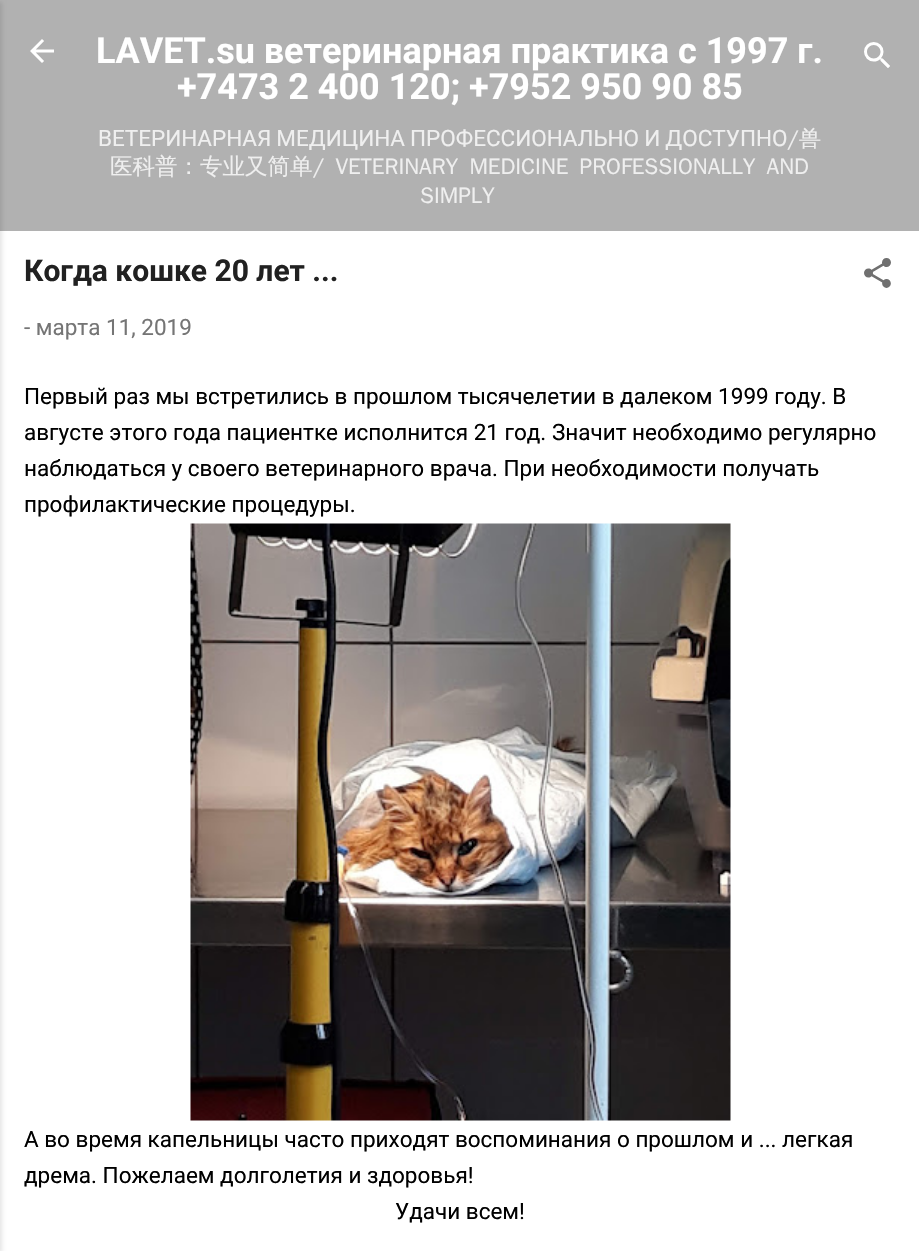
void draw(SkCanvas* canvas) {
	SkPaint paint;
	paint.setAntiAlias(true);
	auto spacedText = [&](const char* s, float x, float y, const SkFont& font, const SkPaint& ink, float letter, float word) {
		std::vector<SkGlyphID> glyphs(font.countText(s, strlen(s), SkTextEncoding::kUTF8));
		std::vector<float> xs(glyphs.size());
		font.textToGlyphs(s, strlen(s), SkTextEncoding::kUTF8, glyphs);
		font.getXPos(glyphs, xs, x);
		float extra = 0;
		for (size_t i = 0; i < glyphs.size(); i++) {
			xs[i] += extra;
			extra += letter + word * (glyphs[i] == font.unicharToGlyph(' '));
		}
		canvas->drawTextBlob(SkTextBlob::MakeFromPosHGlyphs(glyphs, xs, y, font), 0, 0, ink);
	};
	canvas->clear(0xffb1b1b1);
	paint.setColor(0xffffffff);
	canvas->drawRect(SkRect::MakeXYWH(0, 231, 919, 1020), paint);
	paint.setColor(0x1a000000);
	paint.setMaskFilter(SkMaskFilter::MakeBlur(kNormal_SkBlurStyle, 2));
	canvas->drawRect(SkRect::MakeXYWH(-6, 2, 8, 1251), paint);
	paint.setMaskFilter(nullptr);
	canvas->drawImageRect(SkImages::DeferredFromEncodedData(SkData::MakeFromFileName("img1.png")), SkRect::MakeXYWH(30, 39, 24, 24), SkSamplingOptions());
	SkFont f1(fontMgr->matchFamilyStyle("Roboto", SkFontStyle::Bold()), 36);
	f1.setSubpixel(true);
	paint.setColor(0xffffffff);
	canvas->drawString("LAVET.su ветеринарная практика с 1997 г.", 96, 63, f1, paint);
	canvas->drawString("+7473 2 400 120; +7952 950 90 85", 177, 99, f1, paint);
	SkFont f2(fontMgr->matchFamilyStyle("Roboto", SkFontStyle::Normal()), 22.5);
	f2.setSubpixel(true);
	paint.setColor(0xffefefef);
	spacedText("ВЕТЕРИНАРНАЯ МЕДИЦИНА ПРОФЕССИОНАЛЬНО И ДОСТУПНО", 98, 146, f2, paint, 0, -0.5);
	SkFont f3(fontMgr->matchFamilyStyle("WenQuanYi Zen Hei", SkFontStyle(500, SkFontStyle::kNormal_Width, SkFontStyle::kUpright_Slant)), 22.5);
	f3.setSubpixel(true);
	canvas->drawString("/兽", 787, 146, f3, paint);
	spacedText("医科普：专业又简单/ VETERINARY MEDICINE PROFESSIONALLY AND", 110, 174, f3, paint, 0, 4.5);
	canvas->drawString("SIMPLY", 420, 203, f3, paint);
	canvas->drawImageRect(SkImages::DeferredFromEncodedData(SkData::MakeFromFileName("img2.png")), SkRect::MakeXYWH(864, 42, 26, 26), SkSamplingOptions());
	SkFont f4(fontMgr->matchFamilyStyle("Roboto", SkFontStyle::Bold()), 30);
	f4.setSubpixel(true);
	paint.setColor(0xff212121);
	canvas->drawString("Когда кошке 20 лет ...", 24, 281, f4, paint);
	canvas->drawImageRect(SkImages::DeferredFromEncodedData(SkData::MakeFromFileName("img3.png")), SkRect::MakeXYWH(864, 258, 27, 30), SkSamplingOptions());
	paint.setColor(0xff757575);
	canvas->drawString("- марта 11, 2019", 24, 335, f2, paint);
	paint.setColor(0xff000000);
	canvas->drawString("Первый раз мы встретились в прошлом тысячелетии в далеком 1999 году. В", 24, 404, f2, paint);
	canvas->drawString("августе этого года пациентке исполнится 21 год. Значит необходимо регулярно", 24, 440, f2, paint);
	canvas->drawString("наблюдаться у своего ветеринарного врача. При необходимости получать", 24, 476, f2, paint);
	canvas->drawString("профилактические процедуры.", 24, 512, f2, paint);
	canvas->drawImageRect(SkImages::DeferredFromEncodedData(SkData::MakeFromFileName("img4.png")), SkRect::MakeXYWH(190, 523, 541, 598), SkSamplingOptions());
	canvas->drawString("А во время капельницы часто приходят воспоминания о прошлом и ... легкая", 24, 1147, f2, paint);
	canvas->drawString("дрема. Пожелаем долголетия и здоровья!", 24, 1183, f2, paint);
	canvas->drawString("Удачи всем!", 395, 1219, f2, paint);
}
